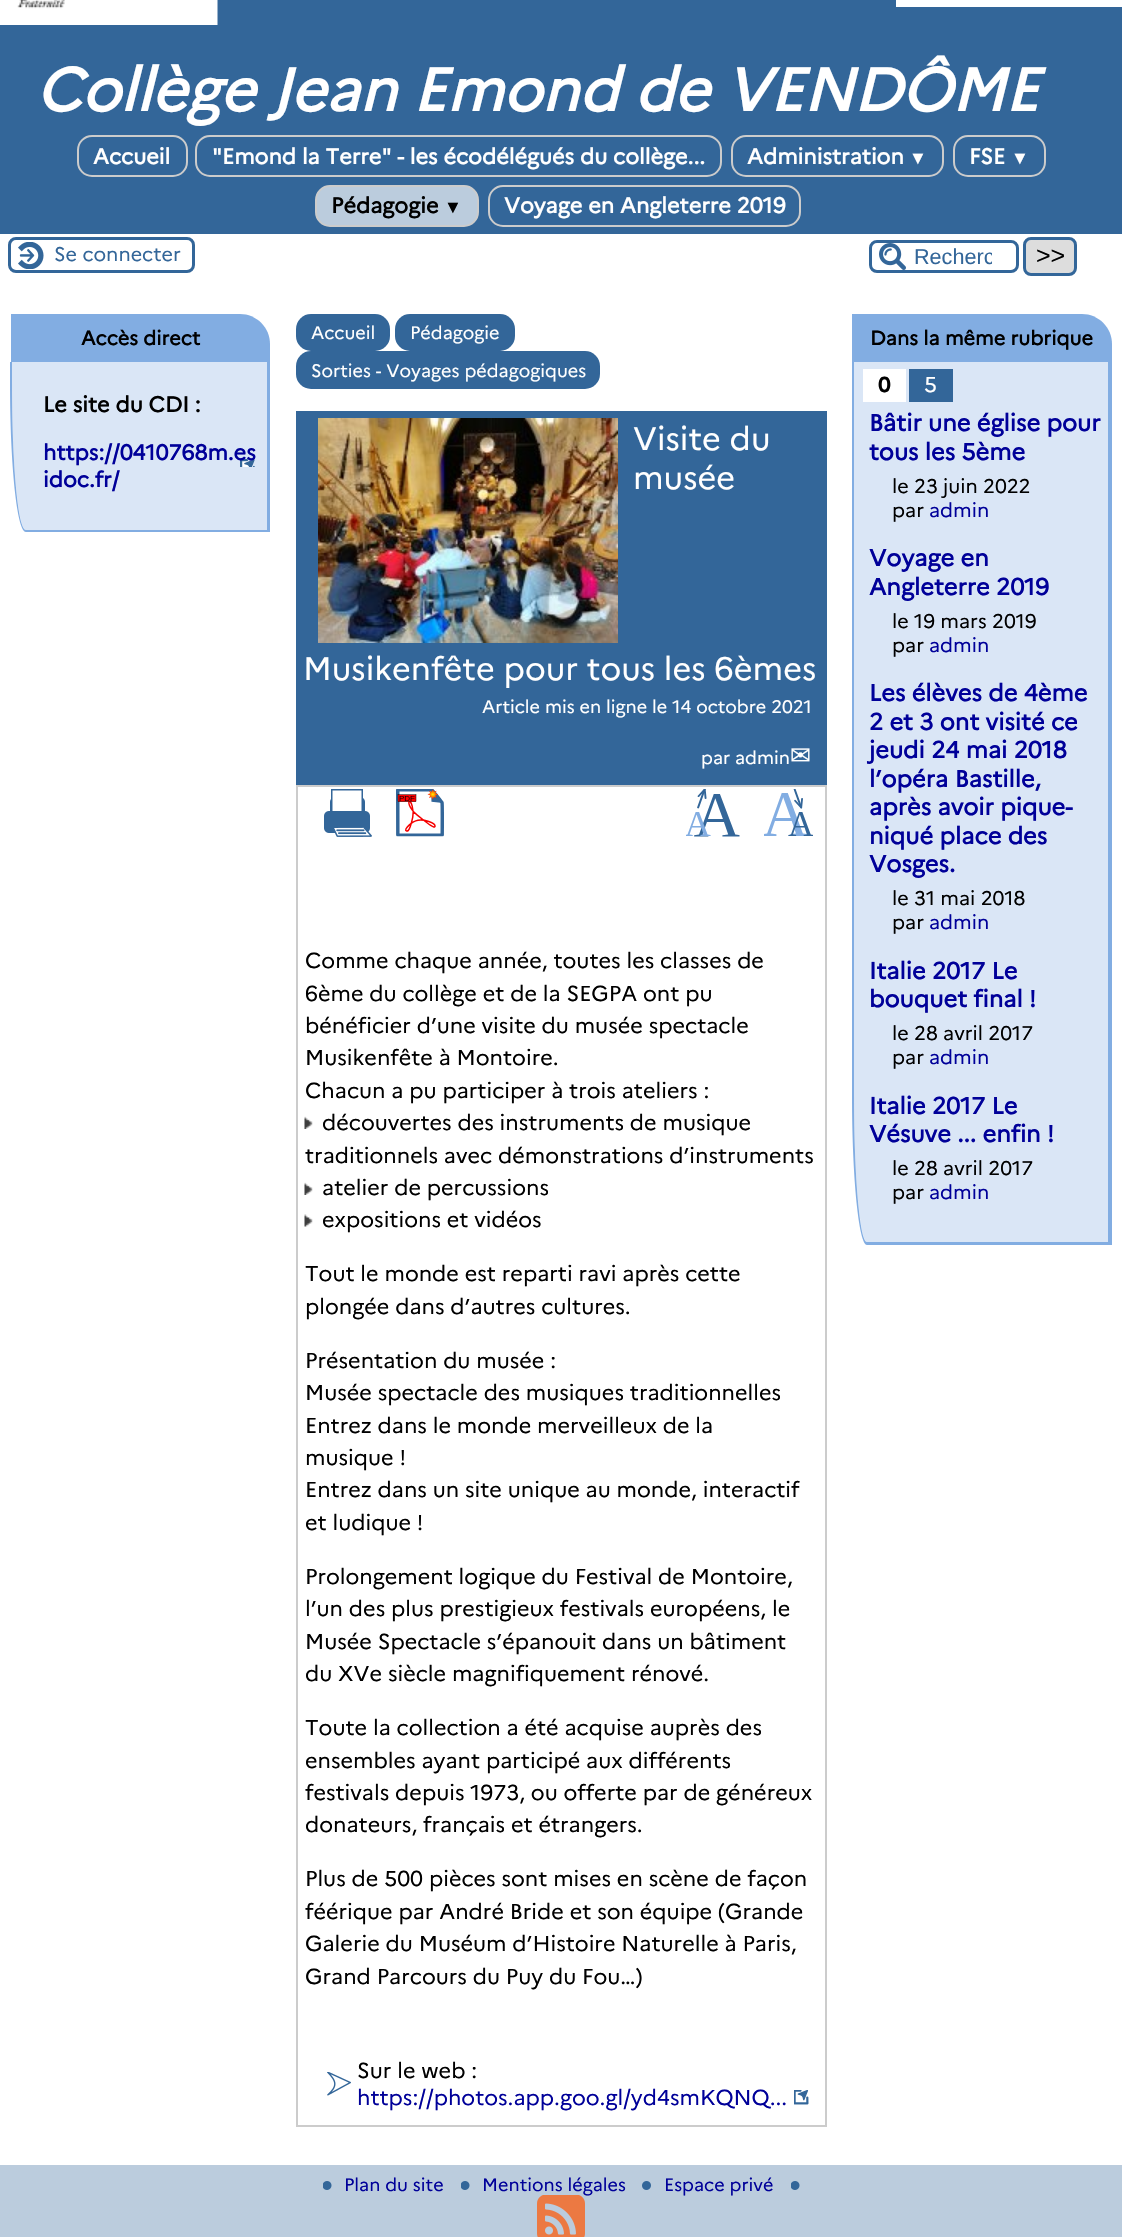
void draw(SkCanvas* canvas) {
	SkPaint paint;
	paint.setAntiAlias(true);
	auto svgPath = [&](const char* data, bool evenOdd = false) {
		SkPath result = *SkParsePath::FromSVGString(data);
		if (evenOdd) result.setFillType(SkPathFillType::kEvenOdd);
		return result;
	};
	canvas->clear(0xffffffff);
	paint.setColor(0xff336699);
	canvas->drawRect(SkRect::MakeXYWH(0, 0, 1122, 234), paint);
	canvas->drawImageRect(SkImages::DeferredFromEncodedData(SkData::MakeFromFileName("img1.png")), SkRect::MakeXYWH(0, 0, 218, 25), SkSamplingOptions());
	paint.setColor(0xffffffff);
	canvas->drawRect(SkRect::MakeXYWH(896, 0, 226, 7), paint);
	SkFont f1(fontMgr->matchFamilyStyle("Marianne", SkFontStyle::BoldItalic()), 60);
	f1.setSubpixel(true);
	canvas->drawString("Collège Jean Emond de VENDÔME", 36, 111, f1, paint);
	paint.setStroke(true);
	paint.setStrokeWidth(2);
	paint.setColor(0xffcccccc);
	canvas->drawRoundRect(SkRect::MakeXYWH(78, 136, 109, 40), 14, 14, paint);
	SkFont f2(fontMgr->matchFamilyStyle("Marianne", SkFontStyle::Bold()), 21.6);
	f2.setSubpixel(true);
	paint.setStroke(false);
	paint.setColor(0xffffffff);
	canvas->drawString("Accueil", 93, 164, f2, paint);
	paint.setStroke(true);
	paint.setColor(0xffcccccc);
	canvas->drawRoundRect(SkRect::MakeXYWH(196, 136, 525, 40), 14, 14, paint);
	paint.setStroke(false);
	paint.setColor(0xffffffff);
	canvas->drawString("\"Emond la Terre\" - les écodélégués du collège...", 212, 164, f2, paint);
	paint.setStroke(true);
	paint.setColor(0xffcccccc);
	canvas->drawRoundRect(SkRect::MakeXYWH(732, 136, 211, 40), 14, 14, paint);
	paint.setStroke(false);
	paint.setColor(0xffffffff);
	canvas->drawString("Administration", 747, 164, f2, paint);
	SkFont f3(fontMgr->matchFamilyStyle("Liberation Serif", SkFontStyle::Bold()), 18);
	f3.setSubpixel(true);
	canvas->drawString("▼", 909, 164, f3, paint);
	paint.setStroke(true);
	paint.setColor(0xffcccccc);
	canvas->drawRoundRect(SkRect::MakeXYWH(954, 136, 91, 40), 14, 14, paint);
	paint.setStroke(false);
	paint.setColor(0xffffffff);
	canvas->drawString("FSE", 969, 164, f2, paint);
	canvas->drawString("▼", 1011, 164, f3, paint);
	paint.setColor(0xffbbccdd);
	canvas->drawRoundRect(SkRect::MakeXYWH(316, 186, 162, 40), 14, 14, paint);
	paint.setStroke(true);
	paint.setColor(0xffcccccc);
	canvas->drawRoundRect(SkRect::MakeXYWH(316, 186, 162, 40), 14, 14, paint);
	paint.setStroke(false);
	paint.setColor(0xff000000);
	canvas->drawString("Pédagogie", 331, 213, f2, paint);
	canvas->drawString("▼", 444, 213, f3, paint);
	paint.setStroke(true);
	paint.setColor(0xffcccccc);
	canvas->drawRoundRect(SkRect::MakeXYWH(489, 186, 311, 40), 14, 14, paint);
	paint.setStroke(false);
	paint.setColor(0xffffffff);
	canvas->drawString("Voyage en Angleterre 2019", 504, 213, f2, paint);
	canvas->drawImageRect(SkImages::DeferredFromEncodedData(SkData::MakeFromFileName("img2.png")), SkRect::MakeXYWH(18, 242, 26, 27), SkSamplingOptions());
	paint.setStroke(true);
	paint.setStrokeWidth(3);
	paint.setColor(0xff336699);
	canvas->drawRoundRect(SkRect::MakeXYWH(9.5, 238.5, 184, 33), 6.5, 6.5, paint);
	SkFont f4(fontMgr->matchFamilyStyle("Marianne", SkFontStyle::Normal()), 19.75);
	f4.setSubpixel(true);
	paint.setStroke(false);
	canvas->drawString("Se connecter", 54, 261, f4, paint);
	canvas->drawImageRect(SkImages::DeferredFromEncodedData(SkData::MakeFromFileName("img3.png")), SkRect::MakeXYWH(879, 243, 27, 27), SkSamplingOptions());
	paint.setStroke(true);
	canvas->drawRoundRect(SkRect::MakeXYWH(870.5, 241.5, 147, 30), 6.5, 6.5, paint);
	canvas->save();
	canvas->clipRect(SkRect::MakeXYWH(914, 245, 78, 24));
	SkFont f5(fontMgr->matchFamilyStyle("Liberation Sans", SkFontStyle::Normal()), 21.6);
	f5.setSubpixel(true);
	paint.setStroke(false);
	canvas->drawString("Recherc", 914, 264, f5, paint);
	canvas->restore();
	paint.setColor(0xffdddddd);
	canvas->drawRoundRect(SkRect::MakeXYWH(1024.5, 238.5, 51, 36), 6.5, 6.5, paint);
	paint.setStroke(true);
	paint.setColor(0xff336699);
	canvas->drawRoundRect(SkRect::MakeXYWH(1024.5, 238.5, 51, 36), 6.5, 6.5, paint);
	SkFont f6(fontMgr->matchFamilyStyle("Liberation Sans", SkFontStyle::Normal()), 25);
	f6.setSubpixel(true);
	paint.setStroke(false);
	paint.setColor(0xff000000);
	canvas->drawString(">>", 1036, 264, f6, paint);
	paint.setColor(0xff82ade2);
	canvas->drawPath(svgPath("M11 314H240C256.5 314 270 327.5 270 344V362H11Z"), paint);
	SkFont f7(fontMgr->matchFamilyStyle("Marianne", SkFontStyle::Bold()), 19.75);
	f7.setSubpixel(true);
	paint.setColor(0xff000000);
	canvas->drawString("Accès direct", 81, 345, f7, paint);
	paint.setColor(0xffdae6f6);
	canvas->drawPath(svgPath("M12 362H267V530H26C18 530 12 464 12 382Z"), paint);
	paint.setColor(0xff82ade2);
	canvas->drawPath(svgPath("M10 362H270V532H26C17 532 10 465 10 382ZM12 362H267V530H26C18 530 12 464 12 382Z", true), paint);
	paint.setColor(0xff000000);
	canvas->drawString("Le site du CDI :", 43, 412, f2, paint);
	canvas->drawImageRect(SkImages::DeferredFromEncodedData(SkData::MakeFromFileName("img4.png")), SkRect::MakeXYWH(240, 459, 15, 8), SkSamplingOptions());
	paint.setColor(0xff000099);
	canvas->drawString("https://0410768m.es", 43, 460, f2, paint);
	canvas->drawString("idoc.fr/", 43, 487, f2, paint);
	paint.setColor(0xff336699);
	canvas->drawRoundRect(SkRect::MakeXYWH(296, 314, 94, 37), 15, 15, paint);
	SkFont f8(fontMgr->matchFamilyStyle("Marianne", SkFontStyle::Normal()), 18);
	f8.setSubpixel(true);
	paint.setColor(0xffffffff);
	canvas->drawString("Accueil", 311, 339, f8, paint);
	paint.setColor(0xff336699);
	canvas->drawRoundRect(SkRect::MakeXYWH(395, 314, 120, 37), 15, 15, paint);
	paint.setColor(0xffffffff);
	canvas->drawString("Pédagogie", 410, 339, f8, paint);
	paint.setColor(0xff336699);
	canvas->drawRoundRect(SkRect::MakeXYWH(296, 351, 304, 38), 15, 15, paint);
	paint.setColor(0xffffffff);
	canvas->drawString("Sorties - Voyages pédagogiques", 311, 377, f8, paint);
	paint.setColor(0xff336699);
	canvas->drawRect(SkRect::MakeXYWH(296, 411, 531, 374), paint);
	canvas->drawImageRect(SkImages::DeferredFromEncodedData(SkData::MakeFromFileName("img5.png")), SkRect::MakeXYWH(318, 418, 300, 225), SkSamplingOptions());
	SkFont f9(fontMgr->matchFamilyStyle("Marianne", SkFontStyle::Normal()), 32.4);
	f9.setSubpixel(true);
	paint.setColor(0xffffffff);
	canvas->drawString("Visite du", 633, 450, f9, paint);
	canvas->drawString("musée", 633, 489, f9, paint);
	canvas->drawString("Musikenfête pour tous les 6èmes", 303, 680, f9, paint);
	canvas->drawString("Article mis en ligne le 14 octobre 2021", 482, 713, f8, paint);
	canvas->drawString("par admin", 701, 764, f8, paint);
	SkFont f10(fontMgr->matchFamilyStyle("DejaVu Sans", SkFontStyle::Normal()), 25);
	f10.setSubpixel(true);
	canvas->drawString("✉", 790, 764, f10, paint);
	paint.setStroke(true);
	paint.setStrokeWidth(2);
	paint.setColor(0xffcccccc);
	canvas->drawRect(SkRect::MakeXYWH(297, 786, 529, 1340), paint);
	canvas->drawImageRect(SkImages::DeferredFromEncodedData(SkData::MakeFromFileName("img6.png")), SkRect::MakeXYWH(324, 789, 48, 48), SkSamplingOptions());
	canvas->drawImageRect(SkImages::DeferredFromEncodedData(SkData::MakeFromFileName("img7.png")), SkRect::MakeXYWH(396, 789, 48, 48), SkSamplingOptions());
	canvas->drawImageRect(SkImages::DeferredFromEncodedData(SkData::MakeFromFileName("img8.png")), SkRect::MakeXYWH(686, 789, 54, 48), SkSamplingOptions());
	canvas->drawImageRect(SkImages::DeferredFromEncodedData(SkData::MakeFromFileName("img9.png")), SkRect::MakeXYWH(764, 789, 49, 47), SkSamplingOptions());
	SkFont f11(fontMgr->matchFamilyStyle("Marianne", SkFontStyle::Normal()), 21.6);
	f11.setSubpixel(true);
	paint.setStroke(false);
	paint.setColor(0xff000000);
	canvas->drawString("Comme chaque année, toutes les classes de", 305, 968, f11, paint);
	canvas->drawString("6ème du collège et de la SEGPA ont pu", 305, 1001, f11, paint);
	canvas->drawString("bénéficier d’une visite du musée spectacle", 305, 1033, f11, paint);
	canvas->drawString("Musikenfête à Montoire.", 305, 1065, f11, paint);
	canvas->drawString("Chacun a pu participer à trois ateliers :", 305, 1098, f11, paint);
	canvas->drawImageRect(SkImages::DeferredFromEncodedData(SkData::MakeFromFileName("img10.png")), SkRect::MakeXYWH(304, 1116, 9, 13), SkSamplingOptions());
	canvas->drawString("découvertes des instruments de musique", 322, 1130, f11, paint);
	canvas->drawString("traditionnels avec démonstrations d’instruments", 305, 1163, f11, paint);
	canvas->drawImageRect(SkImages::DeferredFromEncodedData(SkData::MakeFromFileName("img10.png")), SkRect::MakeXYWH(304, 1182, 9, 13), SkSamplingOptions());
	canvas->drawString("atelier de percussions", 322, 1195, f11, paint);
	canvas->drawImageRect(SkImages::DeferredFromEncodedData(SkData::MakeFromFileName("img11.png")), SkRect::MakeXYWH(304, 1214, 9, 13), SkSamplingOptions());
	canvas->drawString("expositions et vidéos", 322, 1227, f11, paint);
	canvas->drawString("Tout le monde est reparti ravi après cette", 305, 1281, f11, paint);
	canvas->drawString("plongée dans d’autres cultures.", 305, 1314, f11, paint);
	canvas->drawString("Présentation du musée :", 305, 1368, f11, paint);
	canvas->drawString("Musée spectacle des musiques traditionnelles", 305, 1400, f11, paint);
	canvas->drawString("Entrez dans le monde merveilleux de la", 305, 1433, f11, paint);
	canvas->drawString("musique !", 305, 1465, f11, paint);
	canvas->drawString("Entrez dans un site unique au monde, interactif", 305, 1497, f11, paint);
	canvas->drawString("et ludique !", 305, 1530, f11, paint);
	canvas->drawString("Prolongement logique du Festival de Montoire,", 305, 1584, f11, paint);
	canvas->drawString("l’un des plus prestigieux festivals européens, le", 305, 1616, f11, paint);
	canvas->drawString("Musée Spectacle s’épanouit dans un bâtiment", 305, 1649, f11, paint);
	canvas->drawString("du XVe siècle magnifiquement rénové.", 305, 1681, f11, paint);
	canvas->drawString("Toute la collection a été acquise auprès des", 305, 1735, f11, paint);
	canvas->drawString("ensembles ayant participé aux différents", 305, 1768, f11, paint);
	canvas->drawString("festivals depuis 1973, ou offerte par de généreux", 305, 1800, f11, paint);
	canvas->drawString("donateurs, français et étrangers.", 305, 1832, f11, paint);
	canvas->drawString("Plus de 500 pièces sont mises en scène de façon", 305, 1886, f11, paint);
	canvas->drawString("féérique par André Bride et son équipe (Grande", 305, 1919, f11, paint);
	canvas->drawString("Galerie du Muséum d’Histoire Naturelle à Paris,", 305, 1951, f11, paint);
	canvas->drawString("Grand Parcours du Puy du Fou…)", 305, 1984, f11, paint);
	canvas->drawImageRect(SkImages::DeferredFromEncodedData(SkData::MakeFromFileName("img12.png")), SkRect::MakeXYWH(327, 2072, 24, 24), SkSamplingOptions());
	canvas->drawString("Sur le web :", 357, 2078, f11, paint);
	paint.setColor(0xff000099);
	canvas->drawString("https://photos.app.goo.gl/yd4smKQNQ...", 357, 2105, f11, paint);
	canvas->drawImageRect(SkImages::DeferredFromEncodedData(SkData::MakeFromFileName("img13.png")), SkRect::MakeXYWH(794, 2090, 15, 15), SkSamplingOptions());
	paint.setColor(0xff82ade2);
	canvas->drawPath(svgPath("M852 314H1082C1098.5 314 1112 327.5 1112 344V362H852Z"), paint);
	paint.setColor(0xff000000);
	canvas->drawString("Dans la même rubrique", 870, 345, f7, paint);
	paint.setColor(0xffdae6f6);
	canvas->drawPath(svgPath("M854 362H1108V1242H867C860 1242 854 1176 854 1095Z"), paint);
	paint.setColor(0xff82ade2);
	canvas->drawPath(svgPath("M852 362H1112V1245H867C859 1245 852 1178 852 1095ZM854 362H1108V1242H867C860 1242 854 1176 854 1095Z", true), paint);
	paint.setColor(0xffffffff);
	canvas->drawRect(SkRect::MakeXYWH(863, 369, 43, 33), paint);
	SkFont f12(fontMgr->matchFamilyStyle("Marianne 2", SkFontStyle::Bold()), 21.6);
	f12.setSubpixel(true);
	paint.setColor(0xff000000);
	canvas->drawString("0", 878, 392, f12, paint);
	paint.setColor(0xff336699);
	canvas->drawRect(SkRect::MakeXYWH(909, 369, 44, 33), paint);
	paint.setColor(0xffffffff);
	canvas->drawString("5", 924, 392, f11, paint);
	SkFont f13(fontMgr->matchFamilyStyle("Marianne", SkFontStyle::Bold()), 23.5);
	f13.setSubpixel(true);
	paint.setColor(0xff000099);
	canvas->drawString("Bâtir une église pour", 869, 431, f13, paint);
	canvas->drawString("tous les 5ème", 869, 460, f13, paint);
	paint.setColor(0xff000000);
	canvas->drawString("le 23 juin 2022", 892, 493, f4, paint);
	canvas->drawString("par", 892, 517, f4, paint);
	paint.setColor(0xff000099);
	canvas->drawString("admin", 929, 517, f4, paint);
	canvas->drawString("Voyage en", 869, 566, f13, paint);
	canvas->drawString("Angleterre 2019", 869, 595, f13, paint);
	paint.setColor(0xff000000);
	canvas->drawString("le 19 mars 2019", 892, 628, f4, paint);
	canvas->drawString("par", 892, 652, f4, paint);
	paint.setColor(0xff000099);
	canvas->drawString("admin", 929, 652, f4, paint);
	canvas->drawString("Les élèves de 4ème", 869, 701, f13, paint);
	canvas->drawString("2 et 3 ont visité ce", 869, 730, f13, paint);
	canvas->drawString("jeudi 24 mai 2018", 869, 758, f13, paint);
	canvas->drawString("l’opéra Bastille,", 869, 787, f13, paint);
	canvas->drawString("après avoir pique-", 869, 815, f13, paint);
	canvas->drawString("niqué place des", 869, 844, f13, paint);
	canvas->drawString("Vosges.", 869, 872, f13, paint);
	paint.setColor(0xff000000);
	canvas->drawString("le 31 mai 2018", 892, 905, f4, paint);
	canvas->drawString("par", 892, 929, f4, paint);
	paint.setColor(0xff000099);
	canvas->drawString("admin", 929, 929, f4, paint);
	canvas->drawString("Italie 2017 Le", 869, 979, f13, paint);
	canvas->drawString("bouquet final !", 869, 1007, f13, paint);
	paint.setColor(0xff000000);
	canvas->drawString("le 28 avril 2017", 892, 1040, f4, paint);
	canvas->drawString("par", 892, 1064, f4, paint);
	paint.setColor(0xff000099);
	canvas->drawString("admin", 929, 1064, f4, paint);
	canvas->drawString("Italie 2017 Le", 869, 1114, f13, paint);
	canvas->drawString("Vésuve ... enfin !", 869, 1142, f13, paint);
	paint.setColor(0xff000000);
	canvas->drawString("le 28 avril 2017", 892, 1175, f4, paint);
	canvas->drawString("par", 892, 1199, f4, paint);
	paint.setColor(0xff000099);
	canvas->drawString("admin", 929, 1199, f4, paint);
	paint.setColor(0xffbbccdd);
	canvas->drawRect(SkRect::MakeXYWH(0, 2165, 1122, 72), paint);
	canvas->drawImageRect(SkImages::DeferredFromEncodedData(SkData::MakeFromFileName("img14.png")), SkRect::MakeXYWH(323, 2181, 9, 9), SkSamplingOptions());
	paint.setColor(0xff000099);
	canvas->drawString("Plan du site", 344, 2191, f8, paint);
	canvas->drawImageRect(SkImages::DeferredFromEncodedData(SkData::MakeFromFileName("img14.png")), SkRect::MakeXYWH(461, 2181, 9, 9), SkSamplingOptions());
	canvas->drawString("Mentions légales", 482, 2191, f8, paint);
	canvas->drawImageRect(SkImages::DeferredFromEncodedData(SkData::MakeFromFileName("img15.png")), SkRect::MakeXYWH(642, 2181, 9, 9), SkSamplingOptions());
	canvas->drawString("Espace privé", 664, 2191, f8, paint);
	canvas->drawImageRect(SkImages::DeferredFromEncodedData(SkData::MakeFromFileName("img14.png")), SkRect::MakeXYWH(791, 2181, 9, 9), SkSamplingOptions());
	canvas->drawImageRect(SkImages::DeferredFromEncodedData(SkData::MakeFromFileName("img16.png")), SkRect::MakeXYWH(537, 2195, 48, 42), SkSamplingOptions());
}
